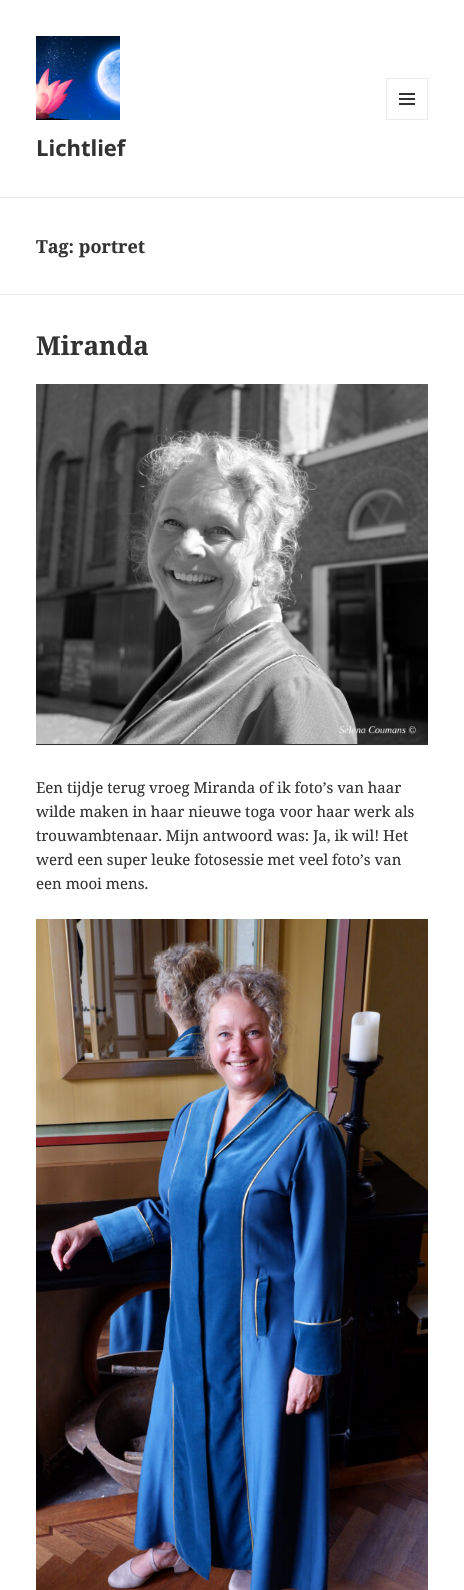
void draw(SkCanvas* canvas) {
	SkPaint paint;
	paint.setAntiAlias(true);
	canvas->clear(0xffffffff);
	paint.setColor(0xffebebeb);
	canvas->drawRect(SkRect::MakeXYWH(0, 197, 464, 1), paint);
	canvas->drawImageRect(SkImages::DeferredFromEncodedData(SkData::MakeFromFileName("img1.png")), SkRect::MakeXYWH(36, 36, 84, 84), SkSamplingOptions());
	paint.setStroke(true);
	paint.setStrokeWidth(1);
	canvas->drawRect(SkRect::MakeXYWH(386.5, 78.5, 41, 41), paint);
	canvas->drawImageRect(SkImages::DeferredFromEncodedData(SkData::MakeFromFileName("img2.png")), SkRect::MakeXYWH(399, 93, 16, 12), SkSamplingOptions());
	SkFont f1(fontMgr->matchFamilyStyle("Noto Sans", SkFontStyle::Bold()), 22);
	f1.setSubpixel(true);
	paint.setStroke(false);
	paint.setColor(0xff333333);
	canvas->drawString("Lichtlief", 36, 156, f1, paint);
	paint.setColor(0xffebebeb);
	canvas->drawRect(SkRect::MakeXYWH(0, 294, 464, 1), paint);
	SkFont f2(fontMgr->matchFamilyStyle("Noto Serif", SkFontStyle::Bold()), 18);
	f2.setSubpixel(true);
	paint.setColor(0xff333333);
	canvas->drawString("Tag: portret", 36, 253, f2, paint);
	SkFont f3(fontMgr->matchFamilyStyle("Noto Serif", SkFontStyle::Bold()), 26);
	f3.setSubpixel(true);
	canvas->drawString("Miranda", 36, 355, f3, paint);
	canvas->drawRect(SkRect::MakeXYWH(36, 744, 392, 1), paint);
	canvas->drawImageRect(SkImages::DeferredFromEncodedData(SkData::MakeFromFileName("img3.png")), SkRect::MakeXYWH(36, 384, 392, 360), SkSamplingOptions());
	SkFont f4(fontMgr->matchFamilyStyle("Noto Serif", SkFontStyle::Normal()), 15);
	f4.setSubpixel(true);
	canvas->drawString("Een tijdje terug vroeg Miranda of ik foto’s van haar", 36, 793, f4, paint);
	canvas->drawString("wilde maken in haar nieuwe toga voor haar werk als", 36, 817, f4, paint);
	canvas->drawString("trouwambtenaar. Mijn antwoord was: Ja, ik wil! Het", 36, 841, f4, paint);
	canvas->drawString("werd een super leuke fotosessie met veel foto’s van", 36, 865, f4, paint);
	canvas->drawString("een mooi mens.", 36, 889, f4, paint);
	canvas->drawImageRect(SkImages::DeferredFromEncodedData(SkData::MakeFromFileName("img4.png")), SkRect::MakeXYWH(36, 919, 392, 671), SkSamplingOptions());
}
